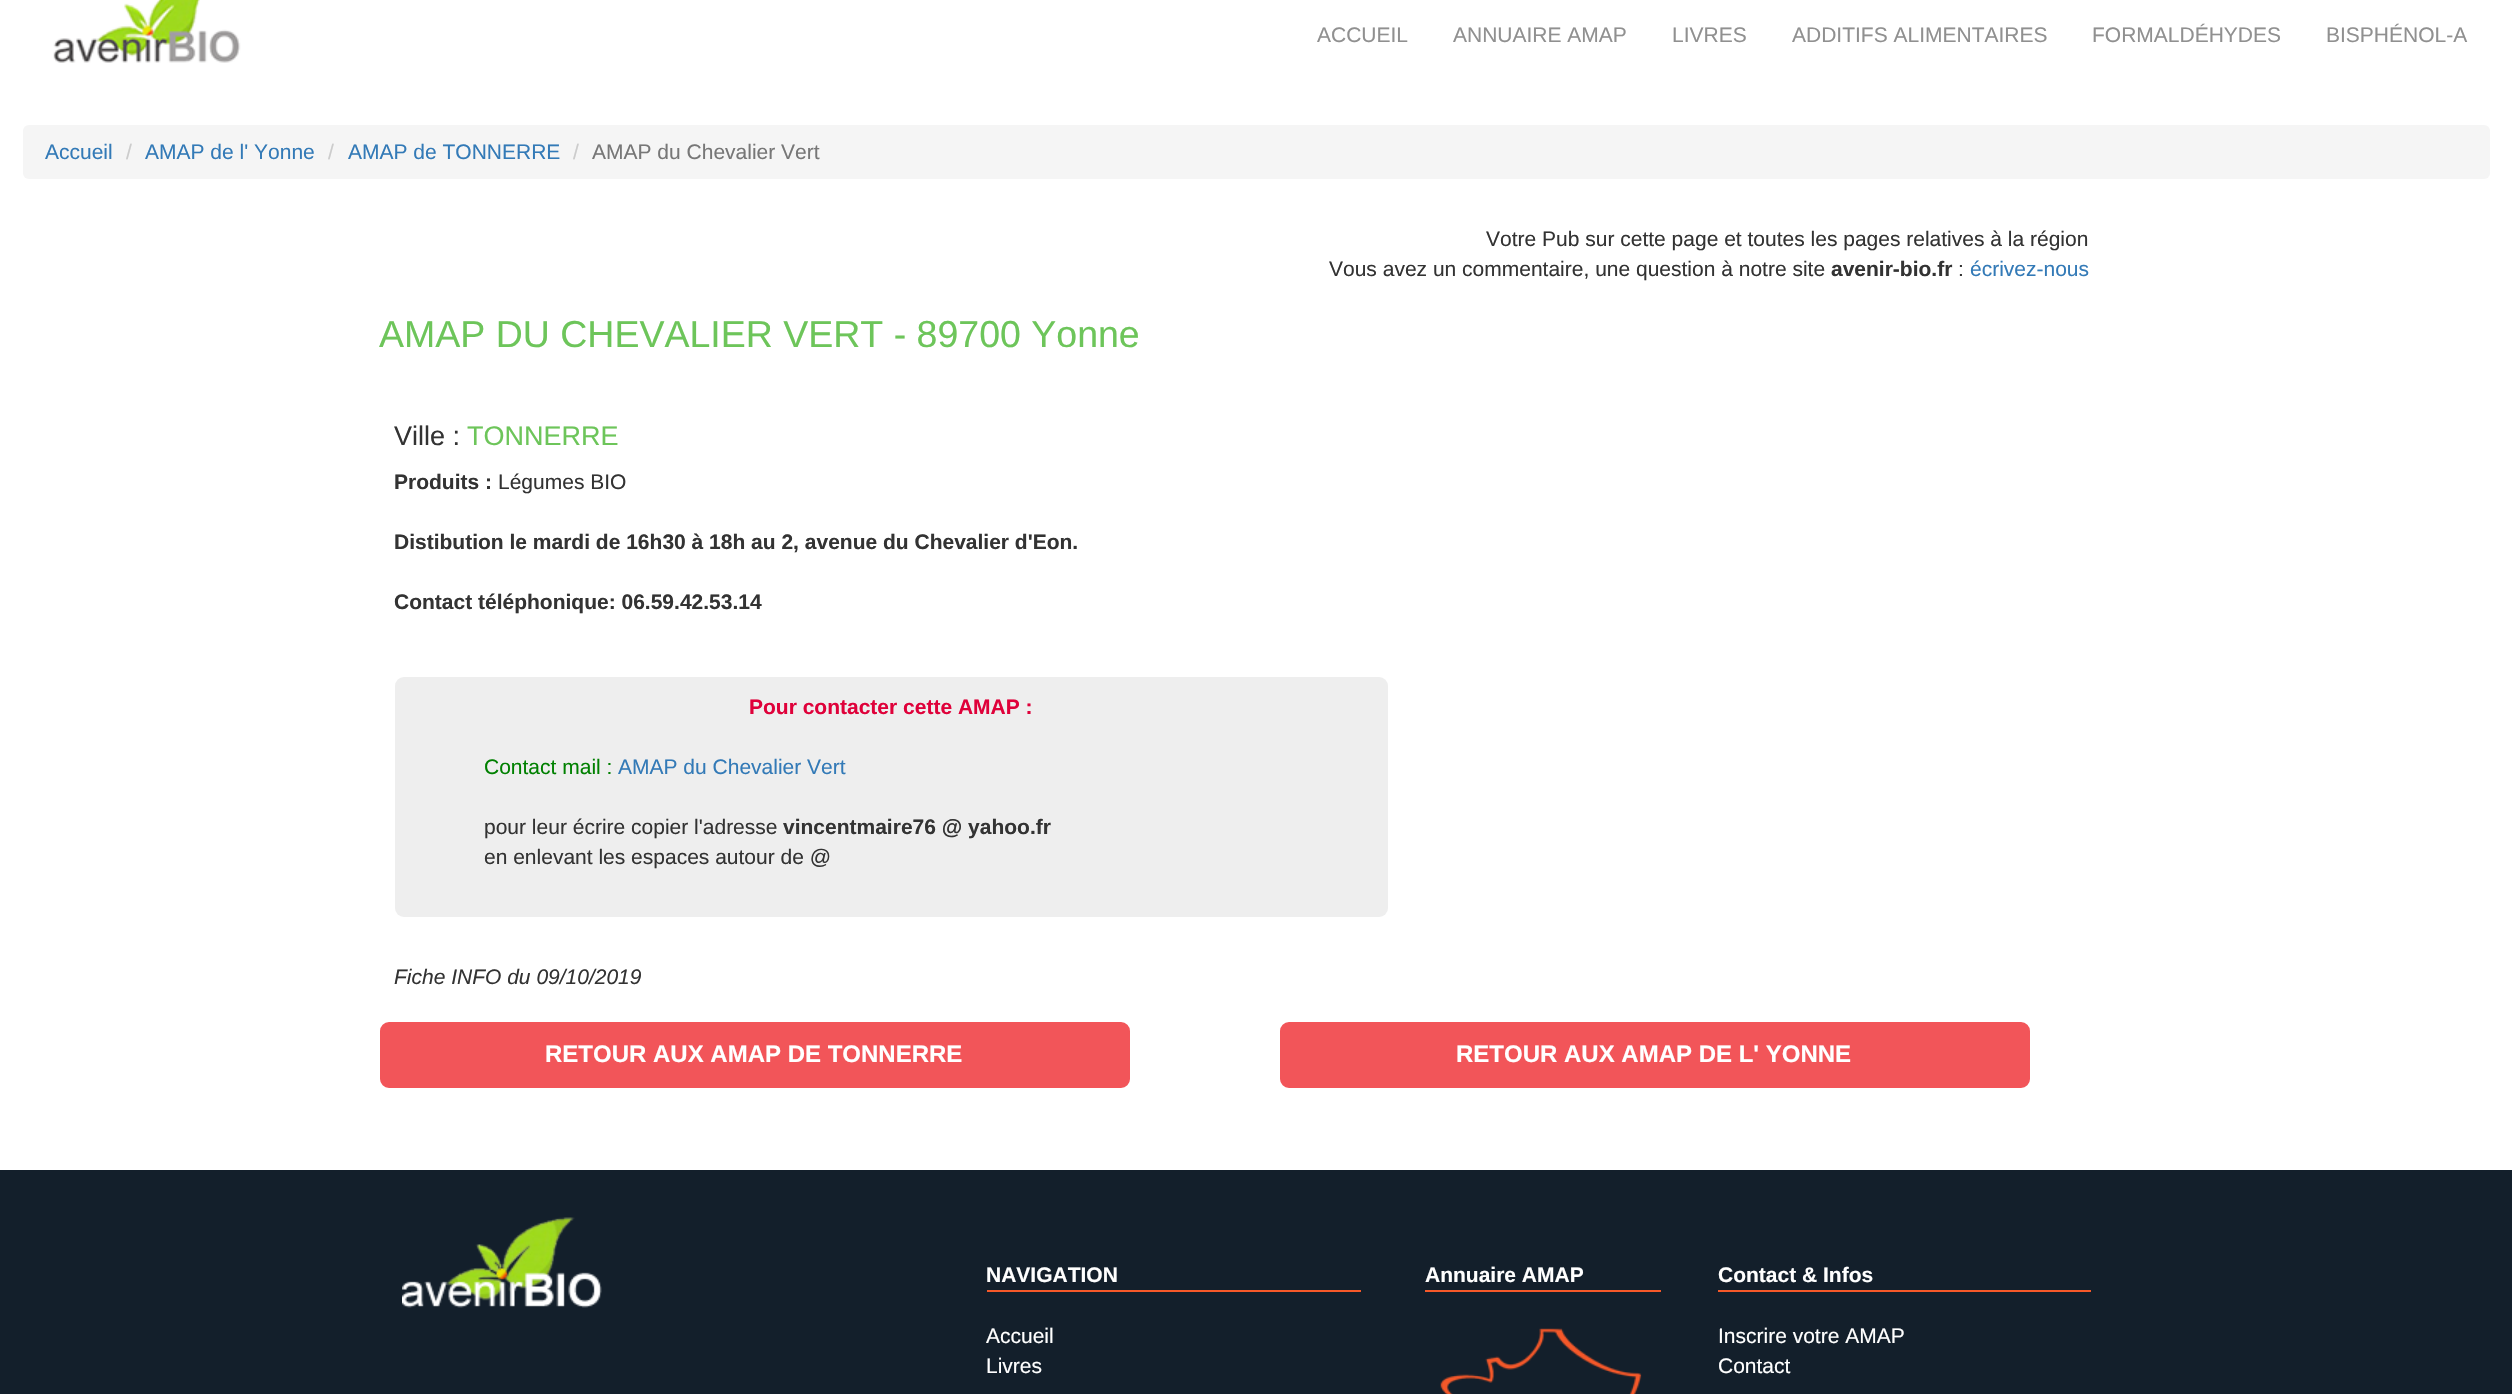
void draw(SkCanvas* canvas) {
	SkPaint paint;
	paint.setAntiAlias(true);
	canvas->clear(0xffffffff);
	canvas->drawImageRect(SkImages::DeferredFromEncodedData(SkData::MakeFromFileName("img1.png")), SkRect::MakeXYWH(53, 0, 188, 63), SkSamplingOptions());
	SkFont f1(fontMgr->matchFamilyStyle("Liberation Sans", SkFontStyle::Normal()), 21);
	f1.setSubpixel(true);
	paint.setColor(0xff909090);
	canvas->drawString("ACCUEIL", 1317, 42, f1, paint);
	canvas->drawString("ANNUAIRE AMAP", 1453, 42, f1, paint);
	canvas->drawString("LIVRES", 1672, 42, f1, paint);
	canvas->drawString("ADDITIFS ALIMENTAIRES", 1792, 42, f1, paint);
	canvas->drawString("FORMALDÉHYDES", 2092, 42, f1, paint);
	canvas->drawString("BISPHÉNOL-A", 2326, 42, f1, paint);
	paint.setColor(0xfff5f5f5);
	canvas->drawRoundRect(SkRect::MakeXYWH(23, 125, 2467, 54), 6, 6, paint);
	paint.setColor(0xff337ab7);
	canvas->drawString("Accueil", 45, 159, f1, paint);
	paint.setColor(0xffcccccc);
	canvas->drawString("/", 126, 159, f1, paint);
	paint.setColor(0xff337ab7);
	canvas->drawString("AMAP de l' Yonne", 145, 159, f1, paint);
	paint.setColor(0xffcccccc);
	canvas->drawString("/", 328, 159, f1, paint);
	paint.setColor(0xff337ab7);
	canvas->drawString("AMAP de TONNERRE", 348, 159, f1, paint);
	paint.setColor(0xffcccccc);
	canvas->drawString("/", 573, 159, f1, paint);
	paint.setColor(0xff777777);
	canvas->drawString("AMAP du Chevalier Vert", 592, 159, f1, paint);
	paint.setColor(0xff333333);
	canvas->drawString("Votre Pub sur cette page et toutes les pages relatives à la région", 1486, 246, f1, paint);
	canvas->drawString("Vous avez un commentaire, une question à notre site", 1329, 276, f1, paint);
	SkFont f2(fontMgr->matchFamilyStyle("Liberation Sans", SkFontStyle::Bold()), 21);
	f2.setSubpixel(true);
	canvas->drawString("avenir-bio.fr", 1831, 276, f2, paint);
	canvas->drawString(":", 1958, 276, f1, paint);
	paint.setColor(0xff337ab7);
	canvas->drawString("écrivez-nous", 1970, 276, f1, paint);
	SkFont f3(fontMgr->matchFamilyStyle("Liberation Sans", SkFontStyle::Normal()), 37.5);
	f3.setSubpixel(true);
	paint.setColor(0xff6dc55a);
	canvas->drawString("AMAP DU CHEVALIER VERT - 89700 Yonne", 379, 347, f3, paint);
	SkFont f4(fontMgr->matchFamilyStyle("Liberation Sans", SkFontStyle::Normal()), 27);
	f4.setSubpixel(true);
	paint.setColor(0xff333333);
	canvas->drawString("Ville :", 394, 445, f4, paint);
	paint.setColor(0xff6dc55a);
	canvas->drawString("TONNERRE", 467, 445, f4, paint);
	paint.setColor(0xff333333);
	canvas->drawString("Produits :", 394, 489, f2, paint);
	canvas->drawString("Légumes BIO", 498, 489, f1, paint);
	canvas->drawString("Distibution le mardi de 16h30 à 18h au 2, avenue du Chevalier d'Eon.", 394, 549, f2, paint);
	canvas->drawString("Contact téléphonique: 06.59.42.53.14", 394, 609, f2, paint);
	paint.setColor(0xffeeeeee);
	canvas->drawRoundRect(SkRect::MakeXYWH(395, 677, 993, 240), 9, 9, paint);
	paint.setColor(0xffdf013a);
	canvas->drawString("Pour contacter cette AMAP :", 749, 714, f2, paint);
	paint.setColor(0xff008000);
	canvas->drawString("Contact mail :", 484, 774, f1, paint);
	paint.setColor(0xff337ab7);
	canvas->drawString("AMAP du Chevalier Vert", 618, 774, f1, paint);
	paint.setColor(0xff333333);
	canvas->drawString("pour leur écrire copier l'adresse", 484, 834, f1, paint);
	canvas->drawString("vincentmaire76 @ yahoo.fr", 783, 834, f2, paint);
	canvas->drawString("en enlevant les espaces autour de @", 484, 864, f1, paint);
	SkFont f5(fontMgr->matchFamilyStyle("Liberation Sans", SkFontStyle::Italic()), 21);
	f5.setSubpixel(true);
	canvas->drawString("Fiche INFO du 09/10/2019", 394, 984, f5, paint);
	paint.setColor(0xfff25559);
	canvas->drawRoundRect(SkRect::MakeXYWH(381, 1023, 748, 64), 8, 8, paint);
	paint.setStroke(true);
	paint.setStrokeWidth(2);
	canvas->drawRoundRect(SkRect::MakeXYWH(381, 1023, 748, 64), 8, 8, paint);
	SkFont f6(fontMgr->matchFamilyStyle("Liberation Sans", SkFontStyle::Bold()), 24);
	f6.setSubpixel(true);
	paint.setStroke(false);
	paint.setColor(0xffffffff);
	canvas->drawString("RETOUR AUX AMAP DE TONNERRE", 545, 1062, f6, paint);
	paint.setColor(0xfff25559);
	canvas->drawRoundRect(SkRect::MakeXYWH(1281, 1023, 748, 64), 8, 8, paint);
	paint.setStroke(true);
	canvas->drawRoundRect(SkRect::MakeXYWH(1281, 1023, 748, 64), 8, 8, paint);
	paint.setStroke(false);
	paint.setColor(0xffffffff);
	canvas->drawString("RETOUR AUX AMAP DE L' YONNE", 1456, 1062, f6, paint);
	paint.setColor(0xff131f2b);
	canvas->drawRect(SkRect::MakeXYWH(0, 1170, 2512, 224), paint);
	canvas->drawImageRect(SkImages::DeferredFromEncodedData(SkData::MakeFromFileName("img2.png")), SkRect::MakeXYWH(402, 1217, 200, 91), SkSamplingOptions());
	paint.setColor(0xffffffff);
	canvas->drawString("NAVIGATION", 986, 1282, f2, paint);
	paint.setColor(0xfff55829);
	canvas->drawRect(SkRect::MakeXYWH(987, 1290, 374, 2), paint);
	paint.setColor(0xffffffff);
	canvas->drawString("Accueil", 986, 1343, f1, paint);
	canvas->drawString("Livres", 986, 1373, f1, paint);
	canvas->drawString("Annuaire AMAP", 1425, 1282, f2, paint);
	paint.setColor(0xfff55829);
	canvas->drawRect(SkRect::MakeXYWH(1425, 1290, 236, 2), paint);
	canvas->drawImageRect(SkImages::DeferredFromEncodedData(SkData::MakeFromFileName("img3.png")), SkRect::MakeXYWH(1440, 1328, 202, 66), SkSamplingOptions());
	paint.setColor(0xffffffff);
	canvas->drawString("Contact & Infos", 1718, 1282, f2, paint);
	paint.setColor(0xfff55829);
	canvas->drawRect(SkRect::MakeXYWH(1718, 1290, 373, 2), paint);
	paint.setColor(0xffffffff);
	canvas->drawString("Inscrire votre AMAP", 1718, 1343, f1, paint);
	canvas->drawString("Contact", 1718, 1373, f1, paint);
}
